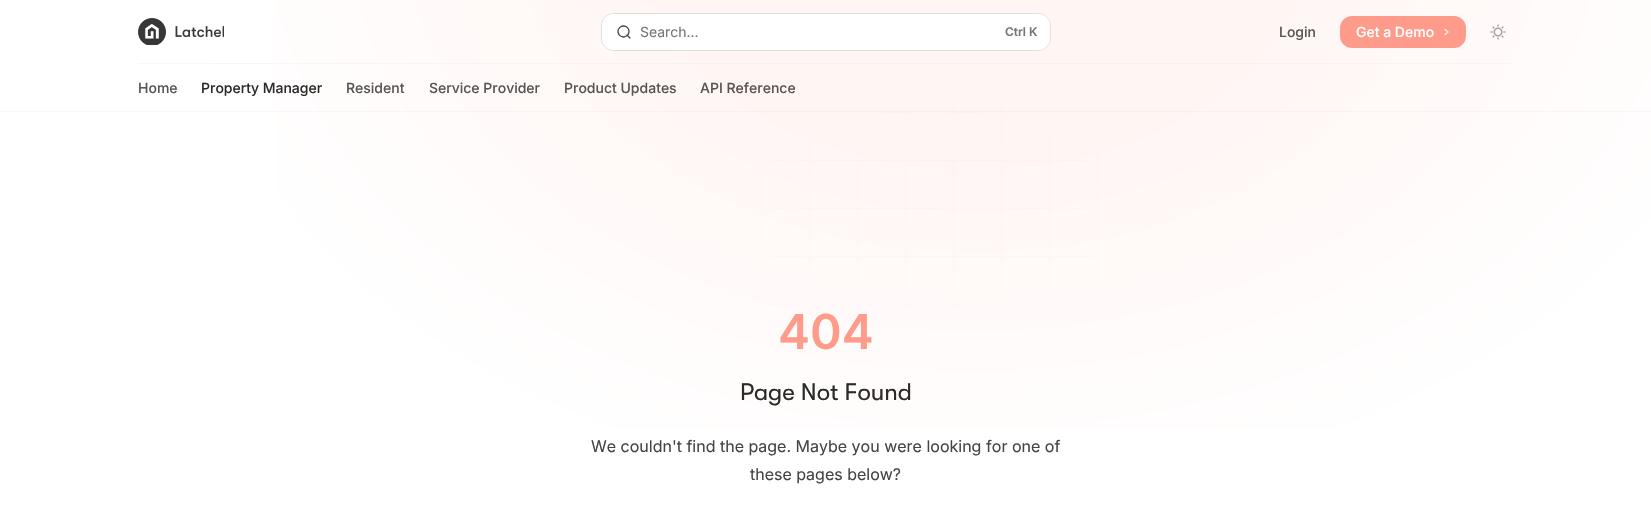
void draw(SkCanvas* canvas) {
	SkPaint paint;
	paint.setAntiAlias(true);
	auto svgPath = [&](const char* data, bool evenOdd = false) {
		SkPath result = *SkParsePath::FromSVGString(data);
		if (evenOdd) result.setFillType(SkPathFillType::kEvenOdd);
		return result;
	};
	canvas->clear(0xffffffff);
	canvas->drawImageRect(SkImages::DeferredFromEncodedData(SkData::MakeFromFileName("img1.png")), SkRect::MakeXYWH(138, 18, 86, 27), SkSamplingOptions());
	{
		const SkColor colors[] = {0xfffff6f4, 0xffffffff};
		const float stops[] = {0.39, 1};
		SkMatrix m = SkMatrix::Translate(974, -74).preScale(819, 584);
		paint.setShader(SkGradientShader::MakeRadial({0, 0}, 1, colors, stops, 2, SkTileMode::kClamp, 0, &m));
		paint.setAlpha(255);
	}
	canvas->drawRect(SkRect::MakeXYWH(276, 0, 1375, 429), paint);
	paint.setStroke(true);
	paint.setStrokeWidth(1);
	paint.setShader(nullptr);
	paint.setColor(0xffe4dddc);
	canvas->drawRoundRect(SkRect::MakeXYWH(601.5, 13.5, 449, 37), 12.5, 12.5, paint);
	paint.setStroke(false);
	paint.setColor(0xffffffff);
	canvas->drawRoundRect(SkRect::MakeXYWH(602, 14, 448, 36), 12, 12, paint);
	paint.setStroke(true);
	paint.setStrokeWidth(1.3);
	paint.setColor(0xff464342);
	canvas->drawCircle(623.5, 31.5, 5.5, paint);
	paint.setStrokeCap(SkPaint::kRound_Cap);
	paint.setStrokeJoin(SkPaint::kRound_Join);
	canvas->drawPath(svgPath("M630 38L627 35"), paint);
	SkFont f1(fontMgr->matchFamilyStyle("Inter", SkFontStyle::Normal()), 14);
	f1.setSubpixel(true);
	paint.setStroke(false);
	paint.setColor(0xff777474);
	canvas->drawString("Search...", 640, 37, f1, paint);
	SkFont f2(fontMgr->matchFamilyStyle("Inter", SkFontStyle(600, SkFontStyle::kNormal_Width, SkFontStyle::kUpright_Slant)), 12);
	f2.setSubpixel(true);
	canvas->drawString("Ctrl K", 1005, 36, f2, paint);
	SkFont f3(fontMgr->matchFamilyStyle("Inter", SkFontStyle(500, SkFontStyle::kNormal_Width, SkFontStyle::kUpright_Slant)), 14);
	f3.setSubpixel(true);
	paint.setColor(0xff575454);
	canvas->drawString("Login", 1279, 37, f3, paint);
	paint.setColor(0xffff9b8a);
	canvas->drawRoundRect(SkRect::MakeXYWH(1340, 16, 126, 32), 12, 12, paint);
	paint.setColor(0xffffffff);
	canvas->drawString("Get a Demo", 1356, 37, f3, paint);
	paint.setStroke(true);
	paint.setStrokeWidth(1.2);
	paint.setStrokeJoin(SkPaint::kMiter_Join);
	paint.setColor(0xfffff5f3);
	canvas->drawPath(svgPath("M1445 29.5L1448 32L1445 34.5"), paint);
	canvas->drawImageRect(SkImages::DeferredFromEncodedData(SkData::MakeFromFileName("img2.png")), SkRect::MakeXYWH(1490, 24, 16, 16), SkSamplingOptions());
	paint.setStroke(false);
	paint.setColor(0xff575454);
	canvas->drawString("Home", 138, 93, f3, paint);
	paint.setColor(0xff2d2a29);
	canvas->drawString("Property Manager", 201, 93, f3, paint);
	paint.setColor(0xff575454);
	canvas->drawString("Resident", 346, 93, f3, paint);
	canvas->drawString("Service Provider", 429, 93, f3, paint);
	canvas->drawString("Product Updates", 564, 93, f3, paint);
	canvas->drawImageRect(SkImages::DeferredFromEncodedData(SkData::MakeFromFileName("img3.png")), SkRect::MakeXYWH(761, 64, 338, 241), SkSamplingOptions());
	canvas->drawString("API Reference", 700, 93, f3, paint);
	paint.setColor(0x0d777474);
	canvas->drawRect(SkRect::MakeXYWH(0, 111, 1651, 1), paint);
	{
		const SkColor colors[] = {0xfff8f0ee, 0xfff8f8f8};
		const float stops[] = {0.39, 1};
		SkMatrix m = SkMatrix::Translate(974, -74).preScale(819, 584);
		paint.setShader(SkGradientShader::MakeRadial({0, 0}, 1, colors, stops, 2, SkTileMode::kClamp, 0, &m));
		paint.setAlpha(255);
	}
	canvas->drawRect(SkRect::MakeXYWH(138, 63, 1376, 1), paint);
	SkFont f4(fontMgr->matchFamilyStyle("Inter", SkFontStyle(600, SkFontStyle::kNormal_Width, SkFontStyle::kUpright_Slant)), 48);
	f4.setSubpixel(true);
	paint.setShader(nullptr);
	paint.setColor(0xffff9b8a);
	canvas->drawString("404", 778, 349, f4, paint);
	SkFont f5(fontMgr->matchFamilyStyle("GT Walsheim", SkFontStyle::Normal()), 24);
	f5.setSubpixel(true);
	paint.setColor(0xff2d2a29);
	canvas->drawString("Page Not Found", 740, 400, f5, paint);
	SkFont f6(fontMgr->matchFamilyStyle("Inter", SkFontStyle::Normal()), 16);
	f6.setSubpixel(true);
	paint.setColor(0xff464342);
	canvas->drawString("We couldn't find the page. Maybe you were looking for one of", 591, 452, f6, paint);
	canvas->drawString("these pages below?", 750, 480, f6, paint);
}
